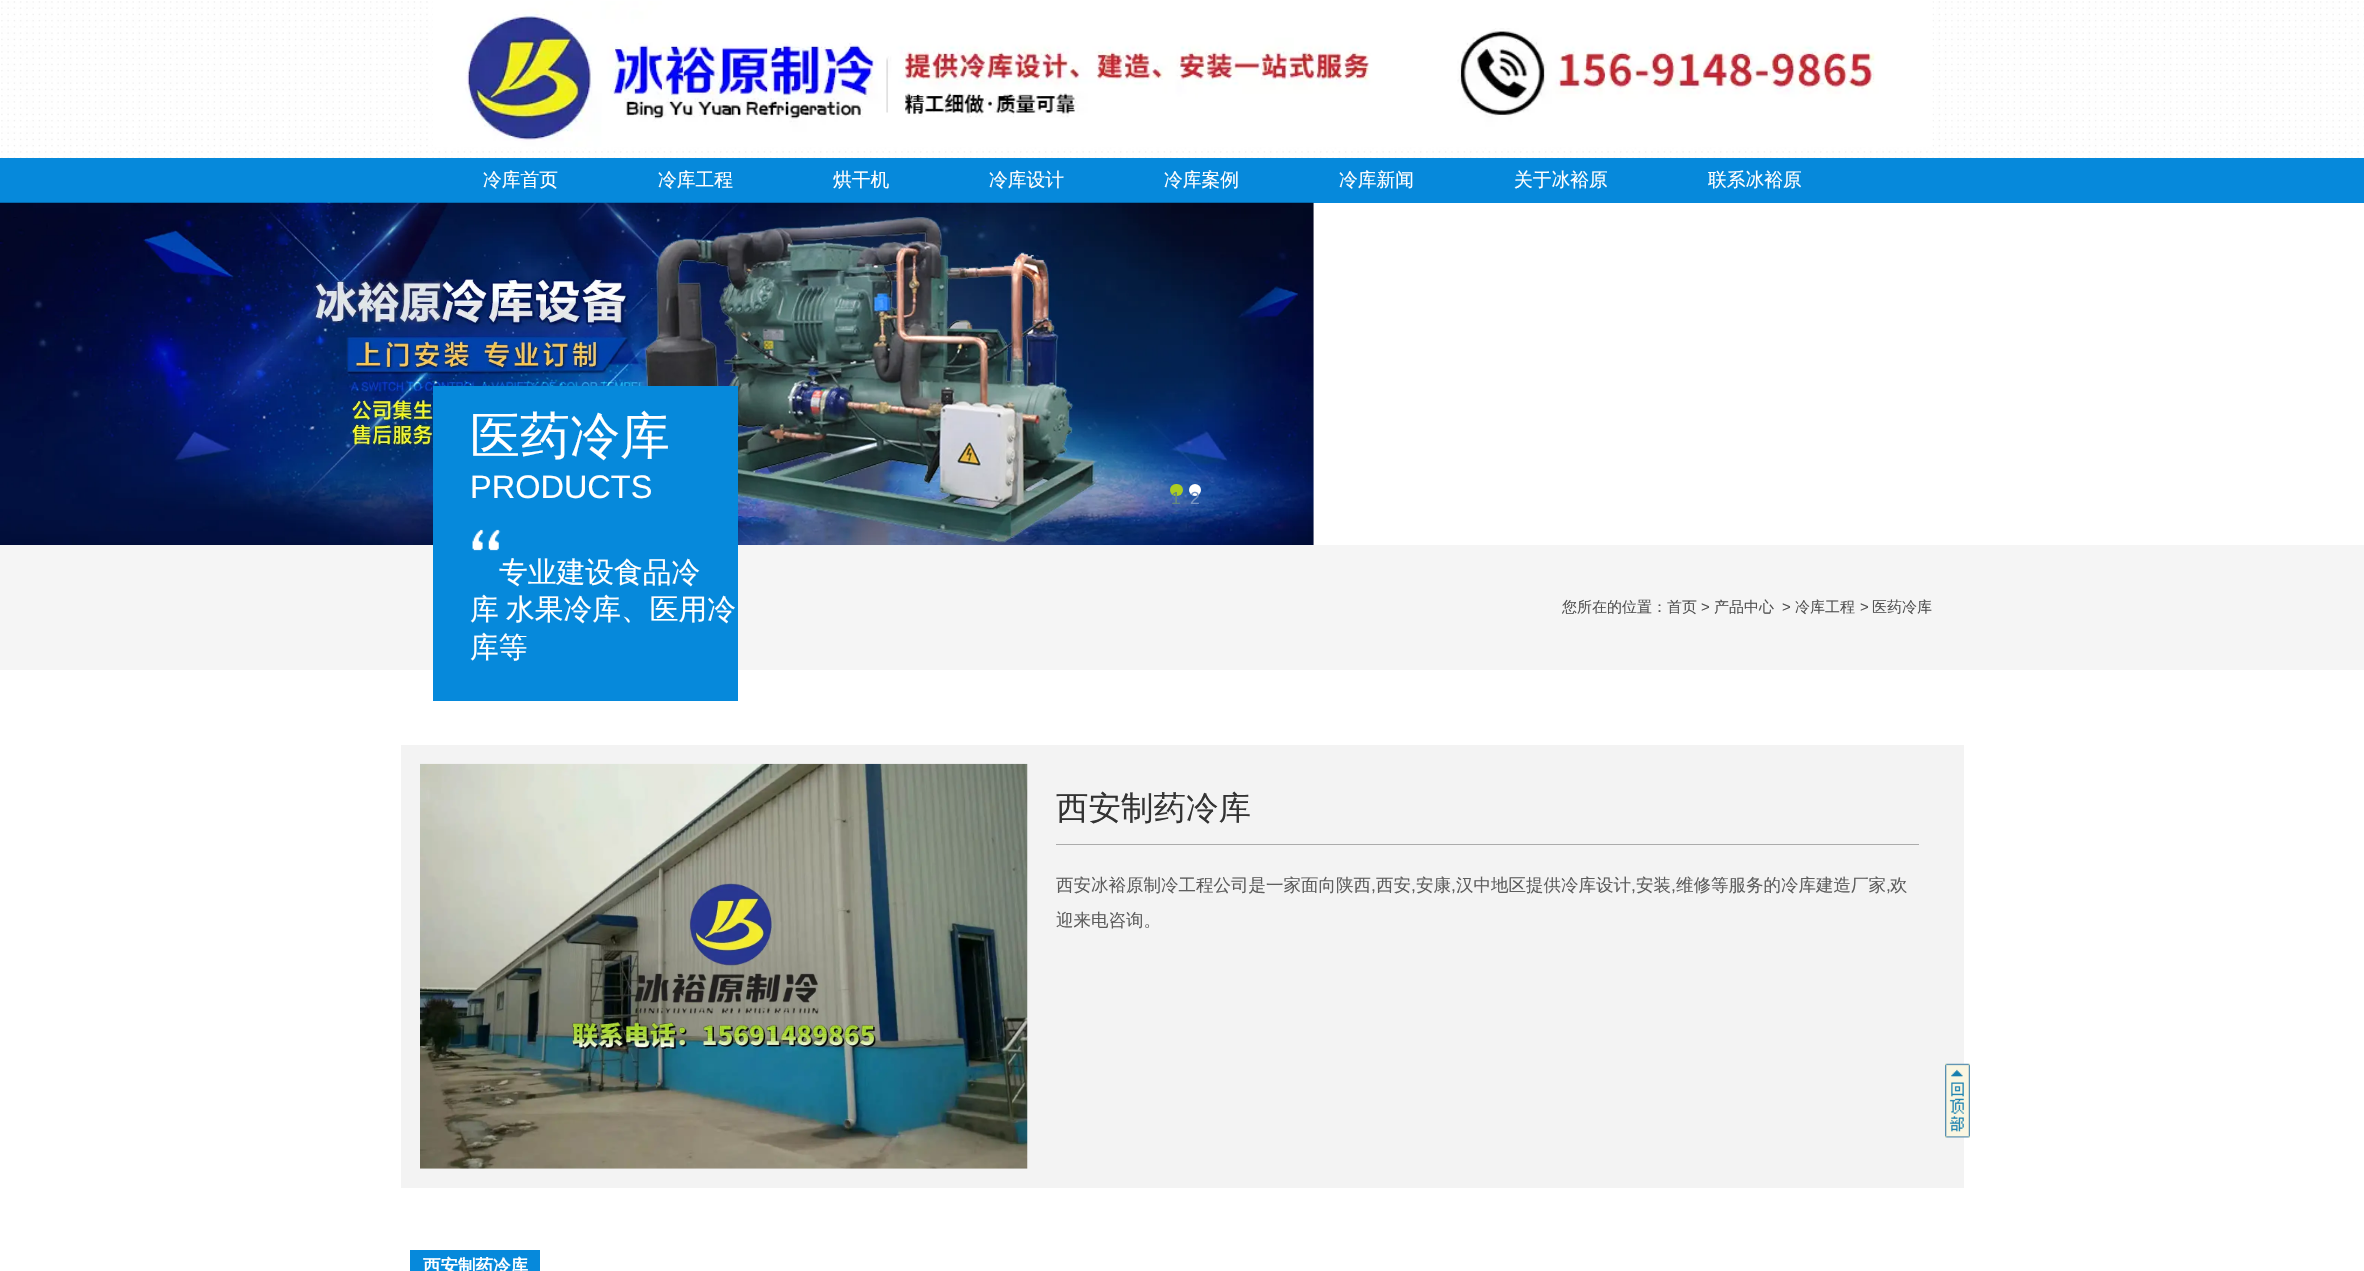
void draw(SkCanvas* canvas) {
	SkPaint paint;
	paint.setAntiAlias(true);
	canvas->clear(0xffffffff);
	canvas->drawImageRect(SkImages::DeferredFromEncodedData(SkData::MakeFromFileName("img1.png")), SkRect::MakeXYWH(1, 1, 2363, 157), SkSamplingOptions());
	canvas->drawImageRect(SkImages::DeferredFromEncodedData(SkData::MakeFromFileName("img2.png")), SkRect::MakeXYWH(432, 1, 1501, 146), SkSamplingOptions());
	paint.setColor(0xff0689db);
	canvas->drawRect(SkRect::MakeXYWH(0, 158, 2364, 45), paint);
	SkFont f1(fontMgr->matchFamilyStyle("WenQuanYi Zen Hei", SkFontStyle(500, SkFontStyle::kNormal_Width, SkFontStyle::kUpright_Slant)), 18.75);
	f1.setSubpixel(true);
	paint.setColor(0xffffffff);
	canvas->drawString("冷库首页", 483, 186, f1, paint);
	canvas->drawString("冷库工程", 658, 186, f1, paint);
	canvas->drawString("烘干机", 833, 186, f1, paint);
	canvas->drawString("冷库设计", 989, 186, f1, paint);
	canvas->drawString("冷库案例", 1164, 186, f1, paint);
	canvas->drawString("冷库新闻", 1339, 186, f1, paint);
	canvas->drawString("关于冰裕原", 1514, 186, f1, paint);
	canvas->drawString("联系冰裕原", 1708, 186, f1, paint);
	paint.setColor(0xfff5f5f5);
	canvas->drawRect(SkRect::MakeXYWH(0, 545, 2364, 125), paint);
	canvas->drawImageRect(SkImages::DeferredFromEncodedData(SkData::MakeFromFileName("img5.png")), SkRect::MakeXYWH(0, 202, 1314, 343), SkSamplingOptions());
	paint.setColor(0xff0689db);
	canvas->drawRect(SkRect::MakeXYWH(433, 386, 305, 315), paint);
	SkFont f2(fontMgr->matchFamilyStyle("WenQuanYi Zen Hei", SkFontStyle(500, SkFontStyle::kNormal_Width, SkFontStyle::kUpright_Slant)), 50);
	f2.setSubpixel(true);
	paint.setColor(0xffffffff);
	canvas->drawString("医药冷库", 470, 453, f2, paint);
	SkFont f3(fontMgr->matchFamilyStyle("Liberation Sans", SkFontStyle::Normal()), 32.5);
	f3.setSubpixel(true);
	canvas->drawString("PRODUCTS", 470, 498, f3, paint);
	canvas->drawImageRect(SkImages::DeferredFromEncodedData(SkData::MakeFromFileName("img3.png")), SkRect::MakeXYWH(472, 529, 29, 22), SkSamplingOptions());
	SkFont f4(fontMgr->matchFamilyStyle("WenQuanYi Zen Hei", SkFontStyle(500, SkFontStyle::kNormal_Width, SkFontStyle::kUpright_Slant)), 28.75);
	f4.setSubpixel(true);
	canvas->drawString("专业建设食品冷", 499, 582, f4, paint);
	canvas->drawString("库", 470, 619, f4, paint);
	canvas->drawString("水果冷库、医用冷", 506, 619, f4, paint);
	canvas->drawString("库等", 470, 657, f4, paint);
	SkFont f5(fontMgr->matchFamilyStyle("WenQuanYi Zen Hei", SkFontStyle(500, SkFontStyle::kNormal_Width, SkFontStyle::kUpright_Slant)), 15);
	f5.setSubpixel(true);
	paint.setColor(0xff515151);
	canvas->drawString("您所在的位置：首页", 1562, 612, f5, paint);
	SkFont f6(fontMgr->matchFamilyStyle("Liberation Sans", SkFontStyle::Normal()), 15);
	f6.setSubpixel(true);
	canvas->drawString(">", 1701, 612, f6, paint);
	canvas->drawString("产品中心", 1714, 612, f5, paint);
	canvas->drawString(">", 1782, 612, f6, paint);
	canvas->drawString("冷库工程", 1795, 612, f5, paint);
	canvas->drawString(">", 1860, 612, f6, paint);
	canvas->drawString("医药冷库", 1872, 612, f5, paint);
	paint.setColor(0xfff3f3f3);
	canvas->drawRect(SkRect::MakeXYWH(401, 745, 1563, 443), paint);
	canvas->drawImageRect(SkImages::DeferredFromEncodedData(SkData::MakeFromFileName("img4.png")), SkRect::MakeXYWH(420, 763, 608, 406), SkSamplingOptions());
	paint.setColor(0xffababab);
	canvas->drawRect(SkRect::MakeXYWH(1056, 844, 863, 1), paint);
	SkFont f7(fontMgr->matchFamilyStyle("WenQuanYi Zen Hei", SkFontStyle(500, SkFontStyle::kNormal_Width, SkFontStyle::kUpright_Slant)), 32.5);
	f7.setSubpixel(true);
	paint.setColor(0xff333333);
	canvas->drawString("西安制药冷库", 1056, 819, f7, paint);
	SkFont f8(fontMgr->matchFamilyStyle("WenQuanYi Zen Hei", SkFontStyle(500, SkFontStyle::kNormal_Width, SkFontStyle::kUpright_Slant)), 17.5);
	f8.setSubpixel(true);
	paint.setColor(0xff5d5d5d);
	canvas->drawString("西安冰裕原制冷工程公司是一家面向陕西", 1056, 891, f8, paint);
	SkFont f9(fontMgr->matchFamilyStyle("Liberation Sans", SkFontStyle::Normal()), 17.5);
	f9.setSubpixel(true);
	canvas->drawString(",", 1371, 891, f9, paint);
	canvas->drawString("西安", 1376, 891, f8, paint);
	canvas->drawString(",", 1411, 891, f9, paint);
	canvas->drawString("安康", 1416, 891, f8, paint);
	canvas->drawString(",", 1451, 891, f9, paint);
	canvas->drawString("汉中地区提供冷库设计", 1456, 891, f8, paint);
	canvas->drawString(",", 1631, 891, f9, paint);
	canvas->drawString("安装", 1636, 891, f8, paint);
	canvas->drawString(",", 1671, 891, f9, paint);
	canvas->drawString("维修等服务的冷库建造厂家", 1676, 891, f8, paint);
	canvas->drawString(",", 1886, 891, f9, paint);
	canvas->drawString("欢", 1890, 891, f8, paint);
	canvas->drawString("迎来电咨询。", 1056, 926, f8, paint);
	paint.setColor(0xff0689db);
	canvas->drawRect(SkRect::MakeXYWH(410, 1250, 130, 21), paint);
	SkFont f10(fontMgr->matchFamilyStyle("WenQuanYi Zen Hei", SkFontStyle::Bold()), 17.5);
	f10.setSubpixel(true);
	paint.setColor(0xffffffff);
	canvas->drawString("西安制药冷库", 423, 1272, f10, paint);
	paint.setColor(0xffacce22);
	canvas->drawRoundRect(SkRect::MakeXYWH(1170, 484, 13, 12), 6, 6, paint);
	paint.setColor(0xff64887e);
	canvas->drawString("1", 1171, 504, f9, paint);
	paint.setColor(0xffffffff);
	canvas->drawCircle(1195, 490, 6, paint);
	paint.setColor(0xff7895c4);
	canvas->drawString("2", 1190, 504, f9, paint);
	canvas->drawImageRect(SkImages::DeferredFromEncodedData(SkData::MakeFromFileName("img6.png")), SkRect::MakeXYWH(1945, 1063, 25, 75), SkSamplingOptions());
}
